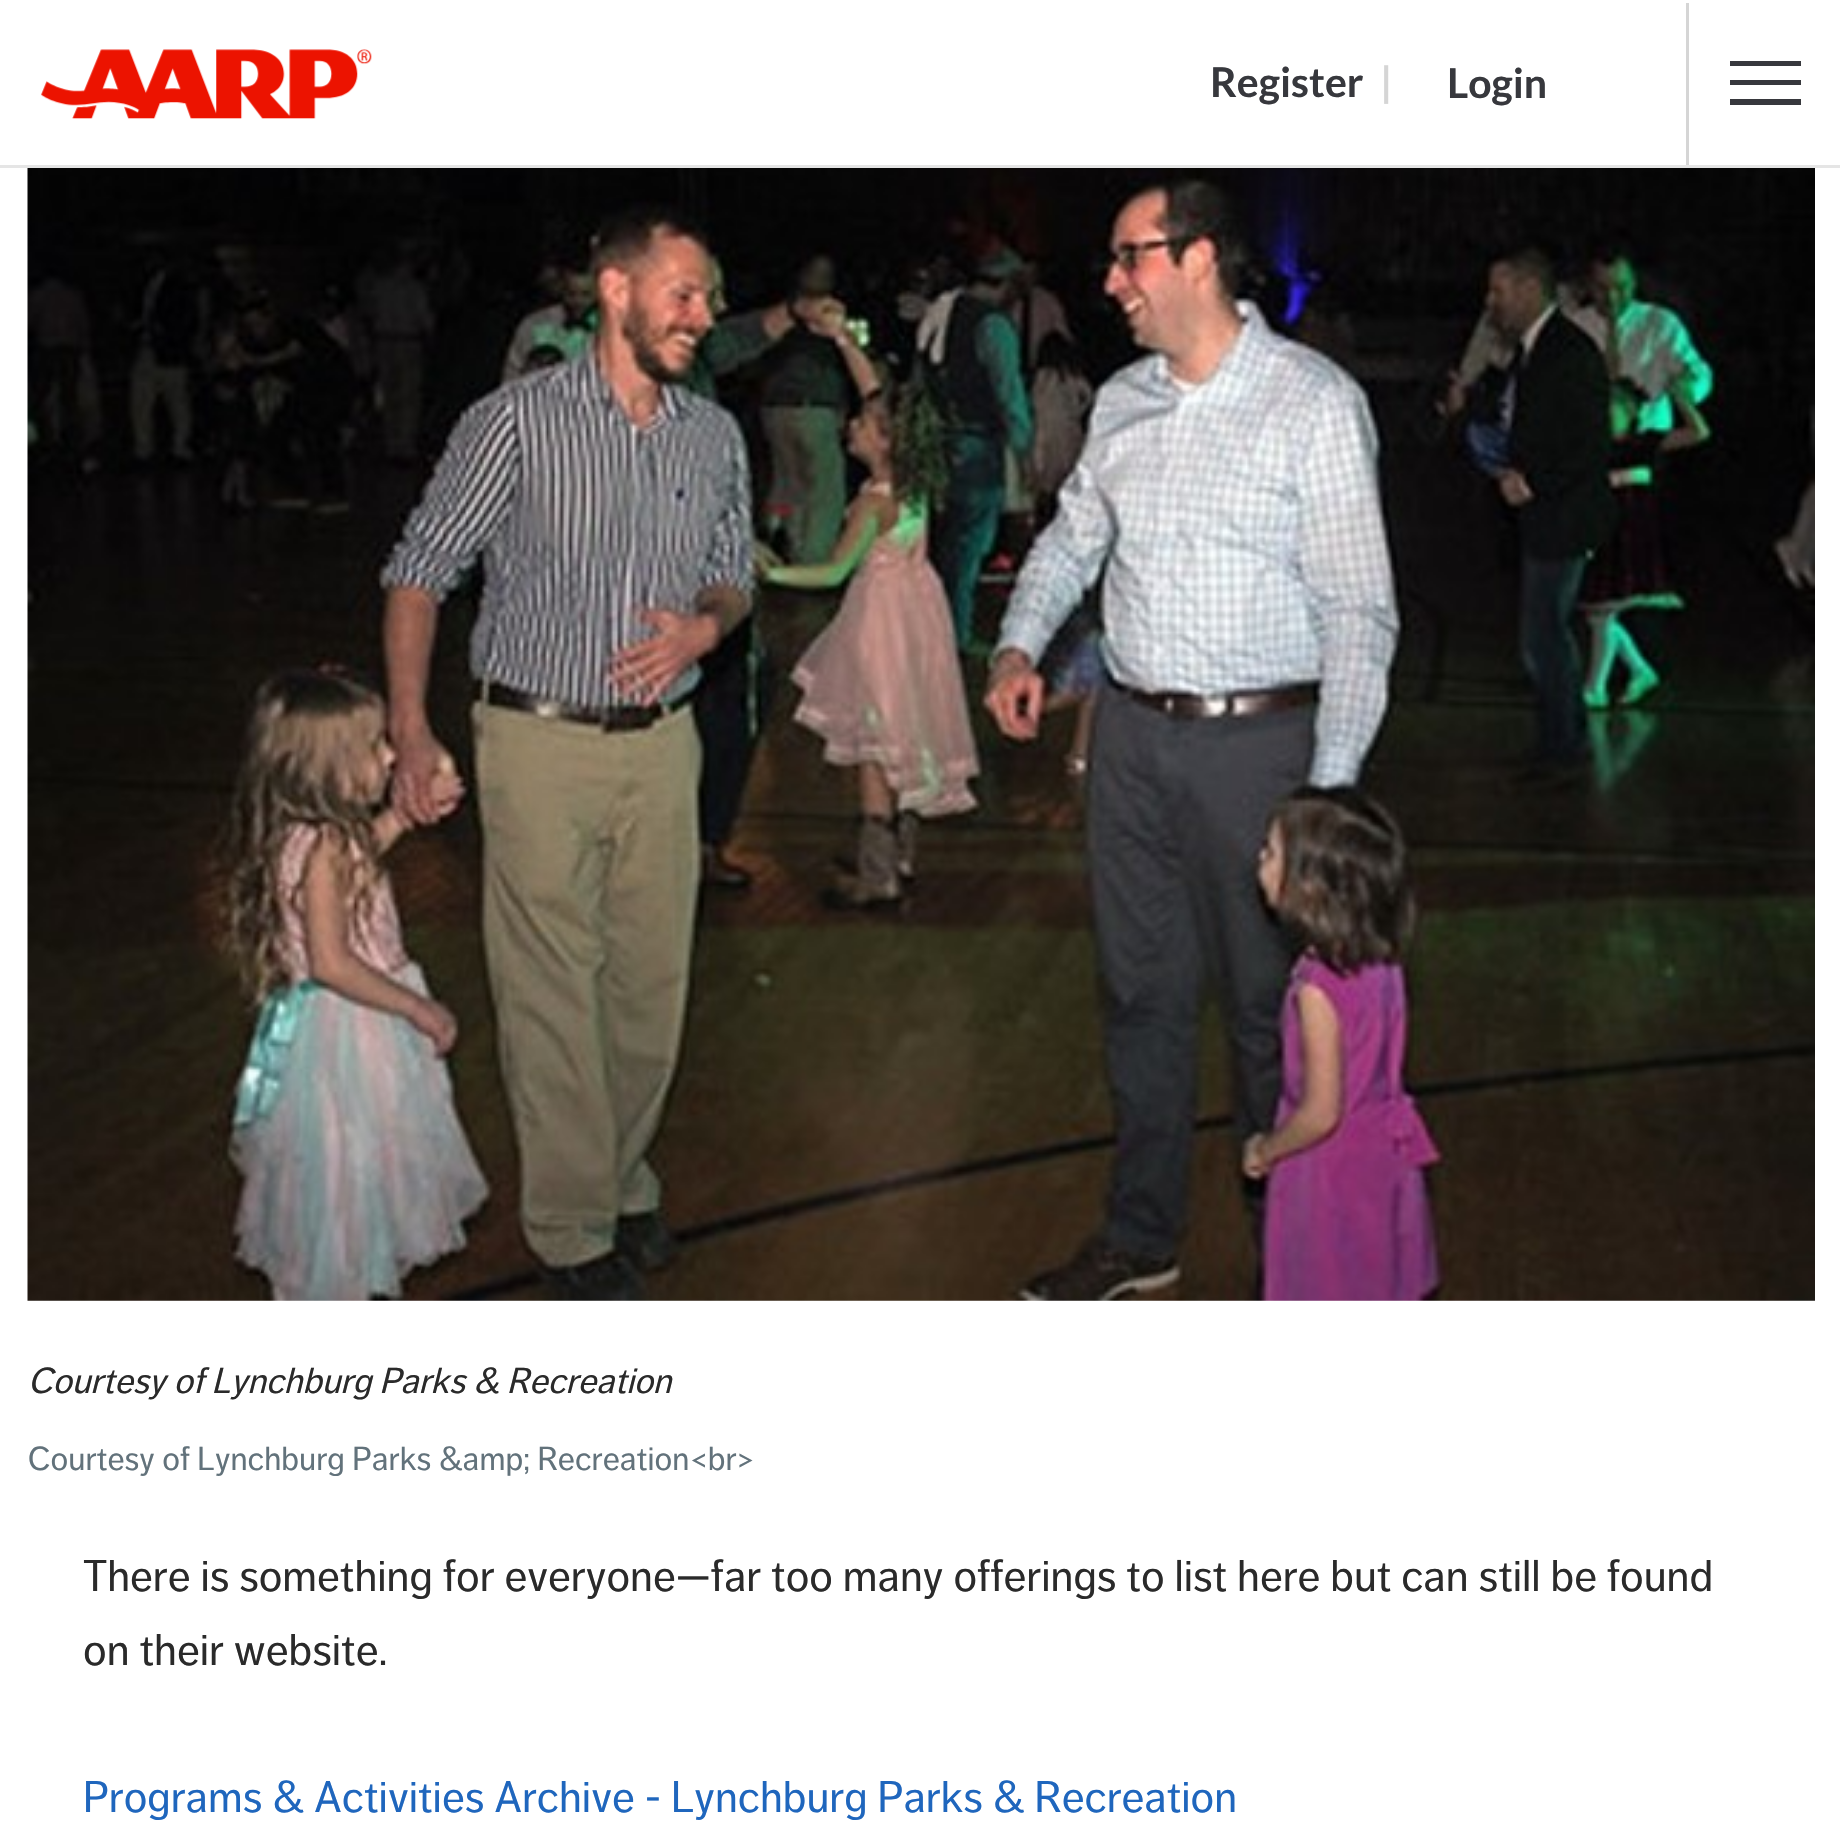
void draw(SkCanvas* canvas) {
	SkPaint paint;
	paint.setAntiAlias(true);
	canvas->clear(0xffffffff);
	paint.setColor(0xffe5e5e5);
	canvas->drawRect(SkRect::MakeXYWH(0, 165, 1840, 3), paint);
	canvas->drawImageRect(SkImages::DeferredFromEncodedData(SkData::MakeFromFileName("img1.png")), SkRect::MakeXYWH(41, 49, 331, 70), SkSamplingOptions());
	SkFont f1(fontMgr->matchFamilyStyle("Lato", SkFontStyle::Bold()), 41);
	f1.setSubpixel(true);
	paint.setColor(0xff37383d);
	canvas->drawString("Register", 1210, 97, f1, paint);
	paint.setColor(0xffd5d5d5);
	canvas->drawString("|", 1380, 97, f1, paint);
	canvas->drawRect(SkRect::MakeXYWH(1686, 3, 3, 162), paint);
	paint.setColor(0xff37383d);
	canvas->drawString("Login", 1447, 98, f1, paint);
	canvas->drawRect(SkRect::MakeXYWH(1730, 61, 71, 5), paint);
	canvas->drawRect(SkRect::MakeXYWH(1730, 80, 71, 5), paint);
	canvas->drawRect(SkRect::MakeXYWH(1730, 99, 71, 6), paint);
	canvas->drawImageRect(SkImages::DeferredFromEncodedData(SkData::MakeFromFileName("img2.png")), SkRect::MakeXYWH(27, 168, 1788, 1133), SkSamplingOptions());
	SkFont f2(fontMgr->matchFamilyStyle("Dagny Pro", SkFontStyle::Italic()), 35.75);
	f2.setSubpixel(true);
	paint.setColor(0xff2a2a2a);
	canvas->drawString("Courtesy of Lynchburg Parks & Recreation", 28, 1393, f2, paint);
	SkFont f3(fontMgr->matchFamilyStyle("Dagny Pro", SkFontStyle::Normal()), 33);
	f3.setSubpixel(true);
	paint.setColor(0xff62727b);
	canvas->drawString("Courtesy of Lynchburg Parks &amp; Recreation<br>", 28, 1470, f3, paint);
	SkFont f4(fontMgr->matchFamilyStyle("Dagny Pro", SkFontStyle::Normal()), 44);
	f4.setSubpixel(true);
	paint.setColor(0xff2a2a2a);
	canvas->drawString("There is something for everyone—far too many offerings to list here but can still be found", 83, 1591, f4, paint);
	canvas->drawString("on their website.", 83, 1665, f4, paint);
	paint.setColor(0xff1f66bd);
	canvas->drawString("Programs & Activities Archive - Lynchburg Parks & Recreation", 83, 1812, f4, paint);
}
